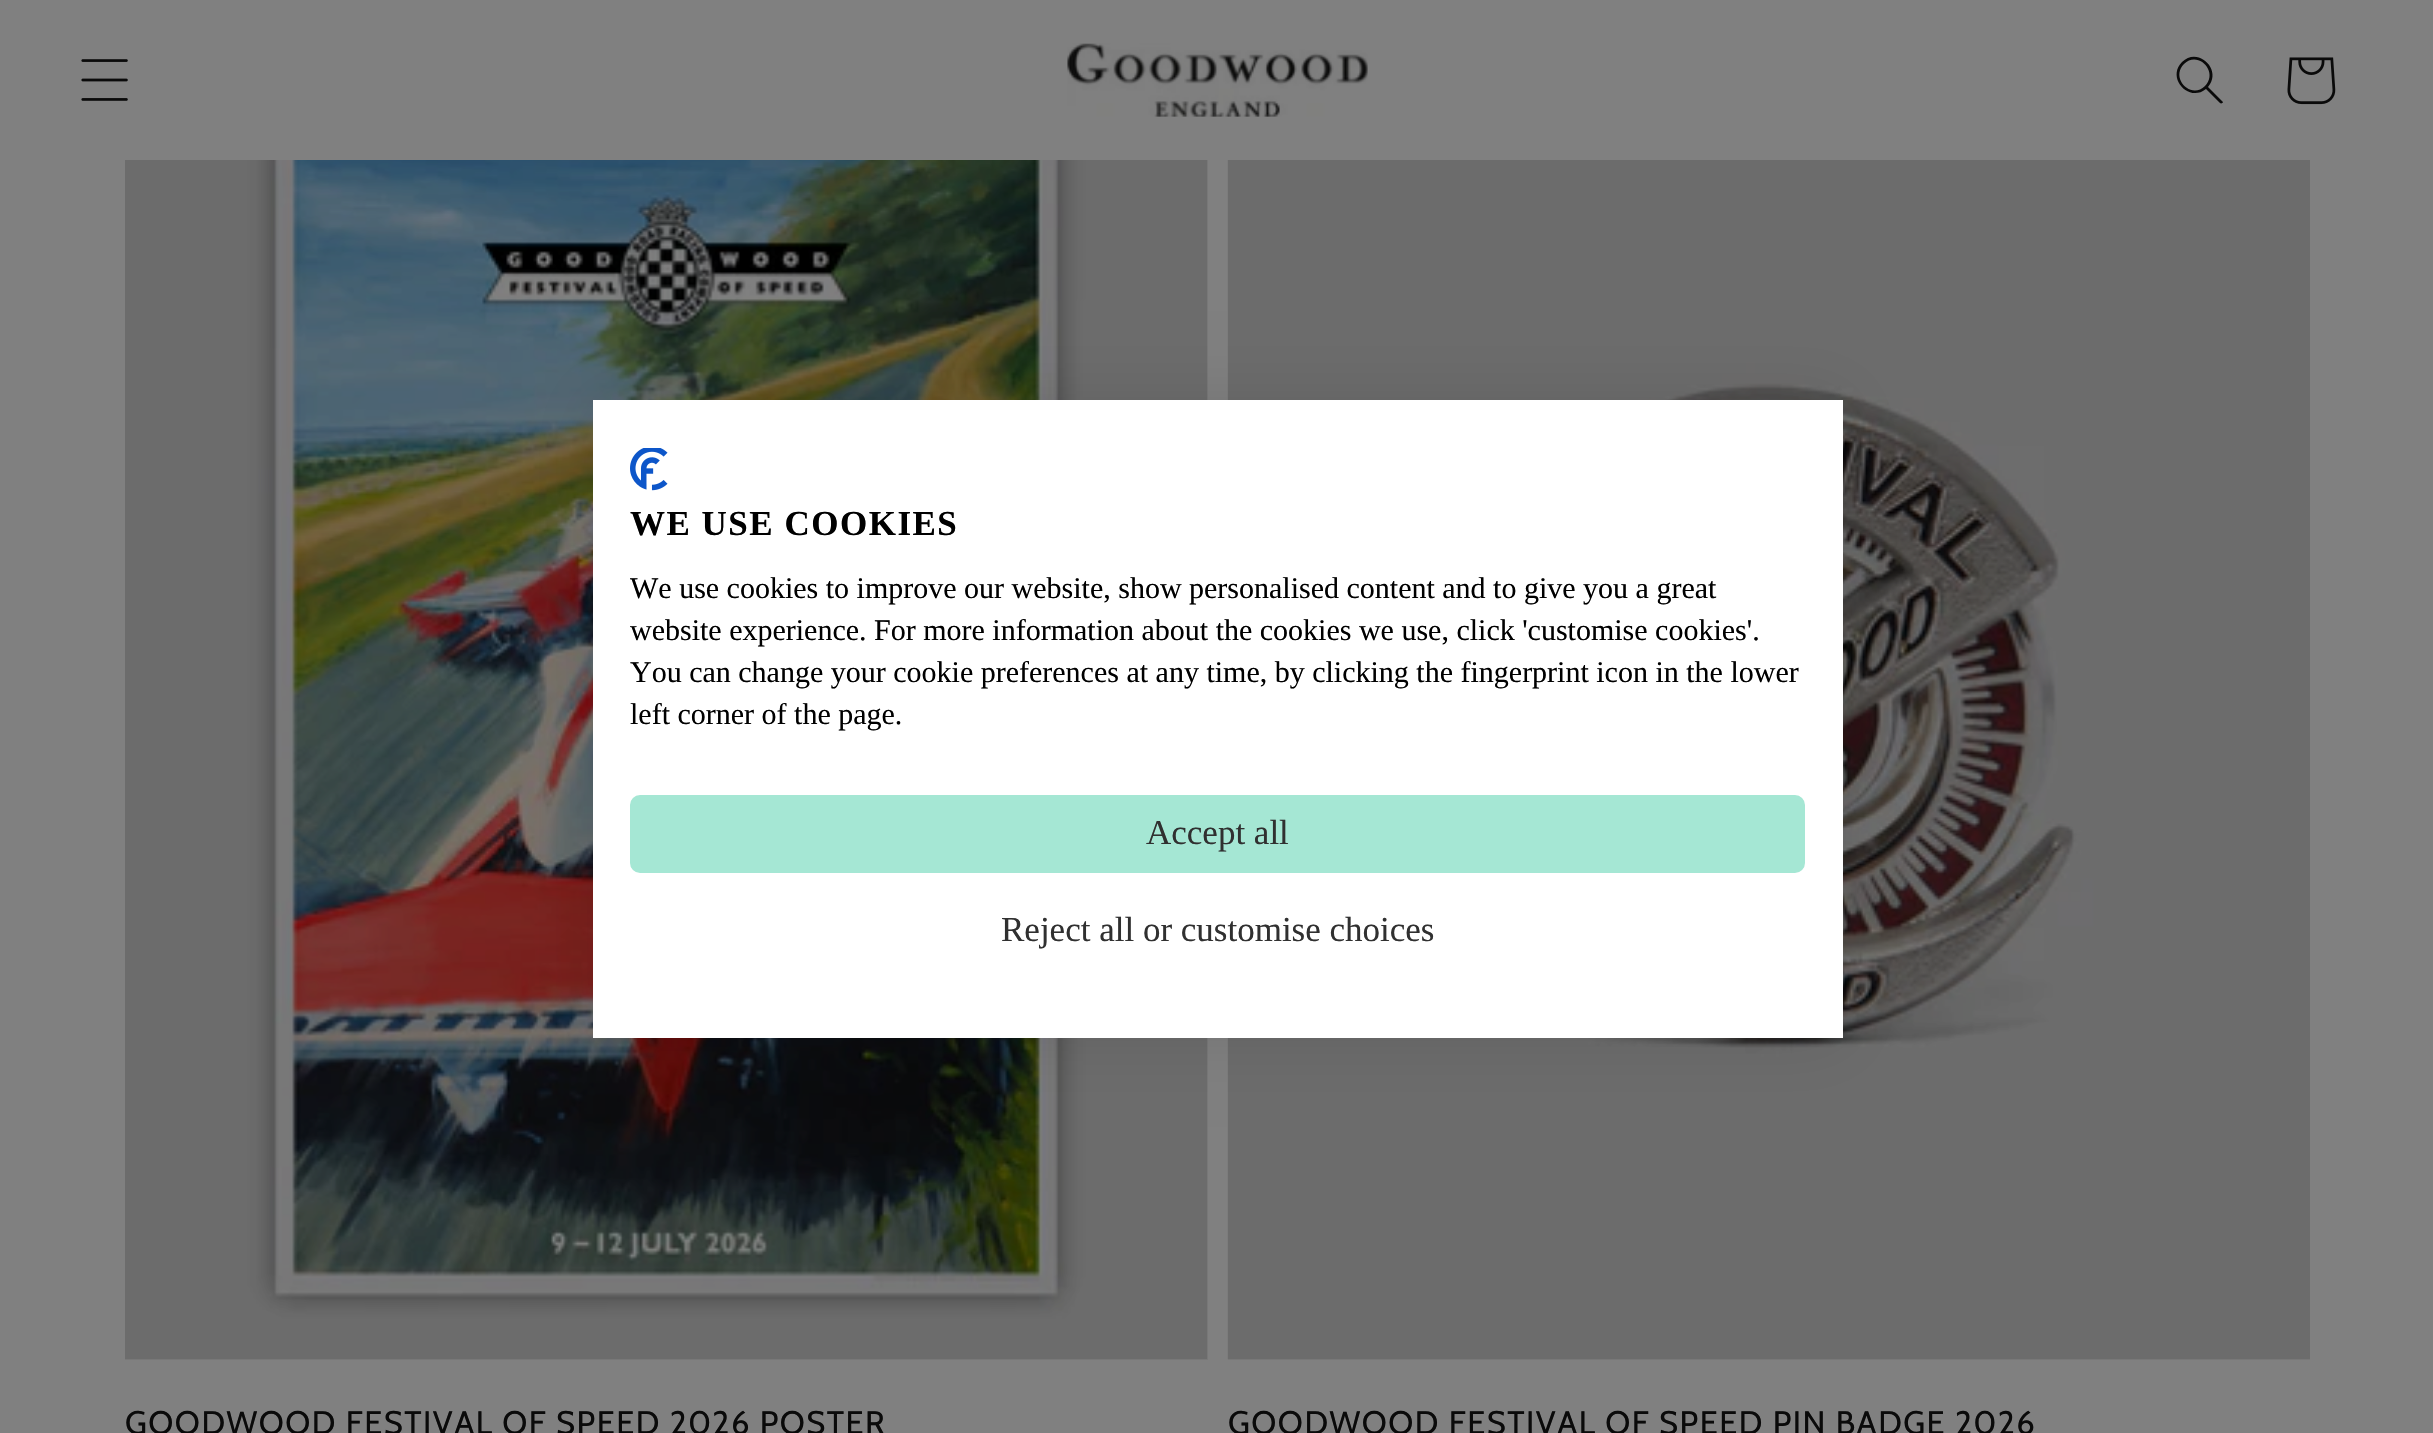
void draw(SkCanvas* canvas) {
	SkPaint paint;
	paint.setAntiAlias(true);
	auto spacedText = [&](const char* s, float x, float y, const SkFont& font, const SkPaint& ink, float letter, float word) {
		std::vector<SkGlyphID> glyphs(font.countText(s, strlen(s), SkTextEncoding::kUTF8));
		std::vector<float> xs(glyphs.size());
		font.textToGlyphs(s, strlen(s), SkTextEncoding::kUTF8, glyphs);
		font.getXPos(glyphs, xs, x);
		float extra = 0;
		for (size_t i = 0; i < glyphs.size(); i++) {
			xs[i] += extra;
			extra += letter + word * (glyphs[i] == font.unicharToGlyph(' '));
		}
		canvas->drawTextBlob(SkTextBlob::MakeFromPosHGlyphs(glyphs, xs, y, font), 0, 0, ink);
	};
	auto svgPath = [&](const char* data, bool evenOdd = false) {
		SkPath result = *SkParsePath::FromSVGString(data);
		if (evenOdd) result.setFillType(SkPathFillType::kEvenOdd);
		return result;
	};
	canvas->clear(0xff808080);
	canvas->drawImageRect(SkImages::DeferredFromEncodedData(SkData::MakeFromFileName("img1.png")), SkRect::MakeXYWH(81, 59, 47, 42), SkSamplingOptions());
	canvas->drawImageRect(SkImages::DeferredFromEncodedData(SkData::MakeFromFileName("img2.png")), SkRect::MakeXYWH(1067, 43, 301, 74), SkSamplingOptions());
	paint.setColor(0xff0a0a0a);
	canvas->drawPath(svgPath("M2205 86C2191 100 2170 78 2184 64C2198 50 2219 72 2205 86M2206 89C2189 103 2166 78 2182 62C2198 46 2223 70 2208 87L2223 102C2223 103 2221 104 2220 103Z", true), paint);
	canvas->drawImageRect(SkImages::DeferredFromEncodedData(SkData::MakeFromFileName("img3.png")), SkRect::MakeXYWH(2287, 57, 49, 48), SkSamplingOptions());
	paint.setColor(0xff7a7a7a);
	canvas->drawRect(SkRect::MakeXYWH(125, 160, 1083, 1200), paint);
	canvas->drawImageRect(SkImages::DeferredFromEncodedData(SkData::MakeFromFileName("img5.png")), SkRect::MakeXYWH(125, 160, 1083, 1200), SkSamplingOptions());
	canvas->drawRect(SkRect::MakeXYWH(1228, 1359, 1082, 1), paint);
	canvas->drawImageRect(SkImages::DeferredFromEncodedData(SkData::MakeFromFileName("img6.png")), SkRect::MakeXYWH(1227, 160, 1083, 1200), SkSamplingOptions());
	paint.setColor(0x1a000000);
	paint.setMaskFilter(SkMaskFilter::MakeBlur(kNormal_SkBlurStyle, 30));
	canvas->drawRect(SkRect::MakeXYWH(593, 400, 1250, 638), paint);
	paint.setMaskFilter(nullptr);
	paint.setColor(0xffffffff);
	canvas->drawRect(SkRect::MakeXYWH(593, 400, 1250, 638), paint);
	canvas->drawImageRect(SkImages::DeferredFromEncodedData(SkData::MakeFromFileName("img4.png")), SkRect::MakeXYWH(630, 448, 38, 43), SkSamplingOptions());
	SkFont f1(fontMgr->matchFamilyStyle("Liberation Serif", SkFontStyle::Bold()), 35);
	f1.setSubpixel(true);
	paint.setColor(0xff000000);
	spacedText("WE USE COOKIES", 630, 535, f1, paint, 1.5, 0);
	SkFont f2(fontMgr->matchFamilyStyle("Liberation Serif", SkFontStyle::Normal()), 30);
	f2.setSubpixel(true);
	canvas->drawString("We use cookies to improve our website, show personalised content and to give you a great", 630, 598, f2, paint);
	canvas->drawString("website experience. For more information about the cookies we use, click 'customise cookies'.", 630, 640, f2, paint);
	canvas->drawString("You can change your cookie preferences at any time, by clicking the fingerprint icon in the lower", 630, 682, f2, paint);
	canvas->drawString("left corner of the page.", 630, 724, f2, paint);
	paint.setColor(0xffa5e7d4);
	canvas->drawRoundRect(SkRect::MakeXYWH(631.5, 796.5, 1172, 75), 8.5, 8.5, paint);
	paint.setStroke(true);
	paint.setStrokeWidth(3);
	canvas->drawRoundRect(SkRect::MakeXYWH(631.5, 796.5, 1172, 75), 8.5, 8.5, paint);
	SkFont f3(fontMgr->matchFamilyStyle("Liberation Serif", SkFontStyle::Normal()), 35);
	f3.setSubpixel(true);
	paint.setStroke(false);
	paint.setColor(0xff303030);
	canvas->drawString("Accept all", 1146, 844, f3, paint);
	canvas->drawString("Reject all or customise choices", 1001, 941, f3, paint);
	SkFont f4(fontMgr->matchFamilyStyle("Cabin", SkFontStyle::Normal()), 32.5);
	f4.setSubpixel(true);
	paint.setColor(0xff0a0a0a);
	spacedText("GOODWOOD FESTIVAL OF SPEED 2026 POSTER", 125, 1434, f4, paint, 1.5, 0);
	spacedText("GOODWOOD FESTIVAL OF SPEED PIN BADGE 2026", 1228, 1434, f4, paint, 1.5, 0);
}
